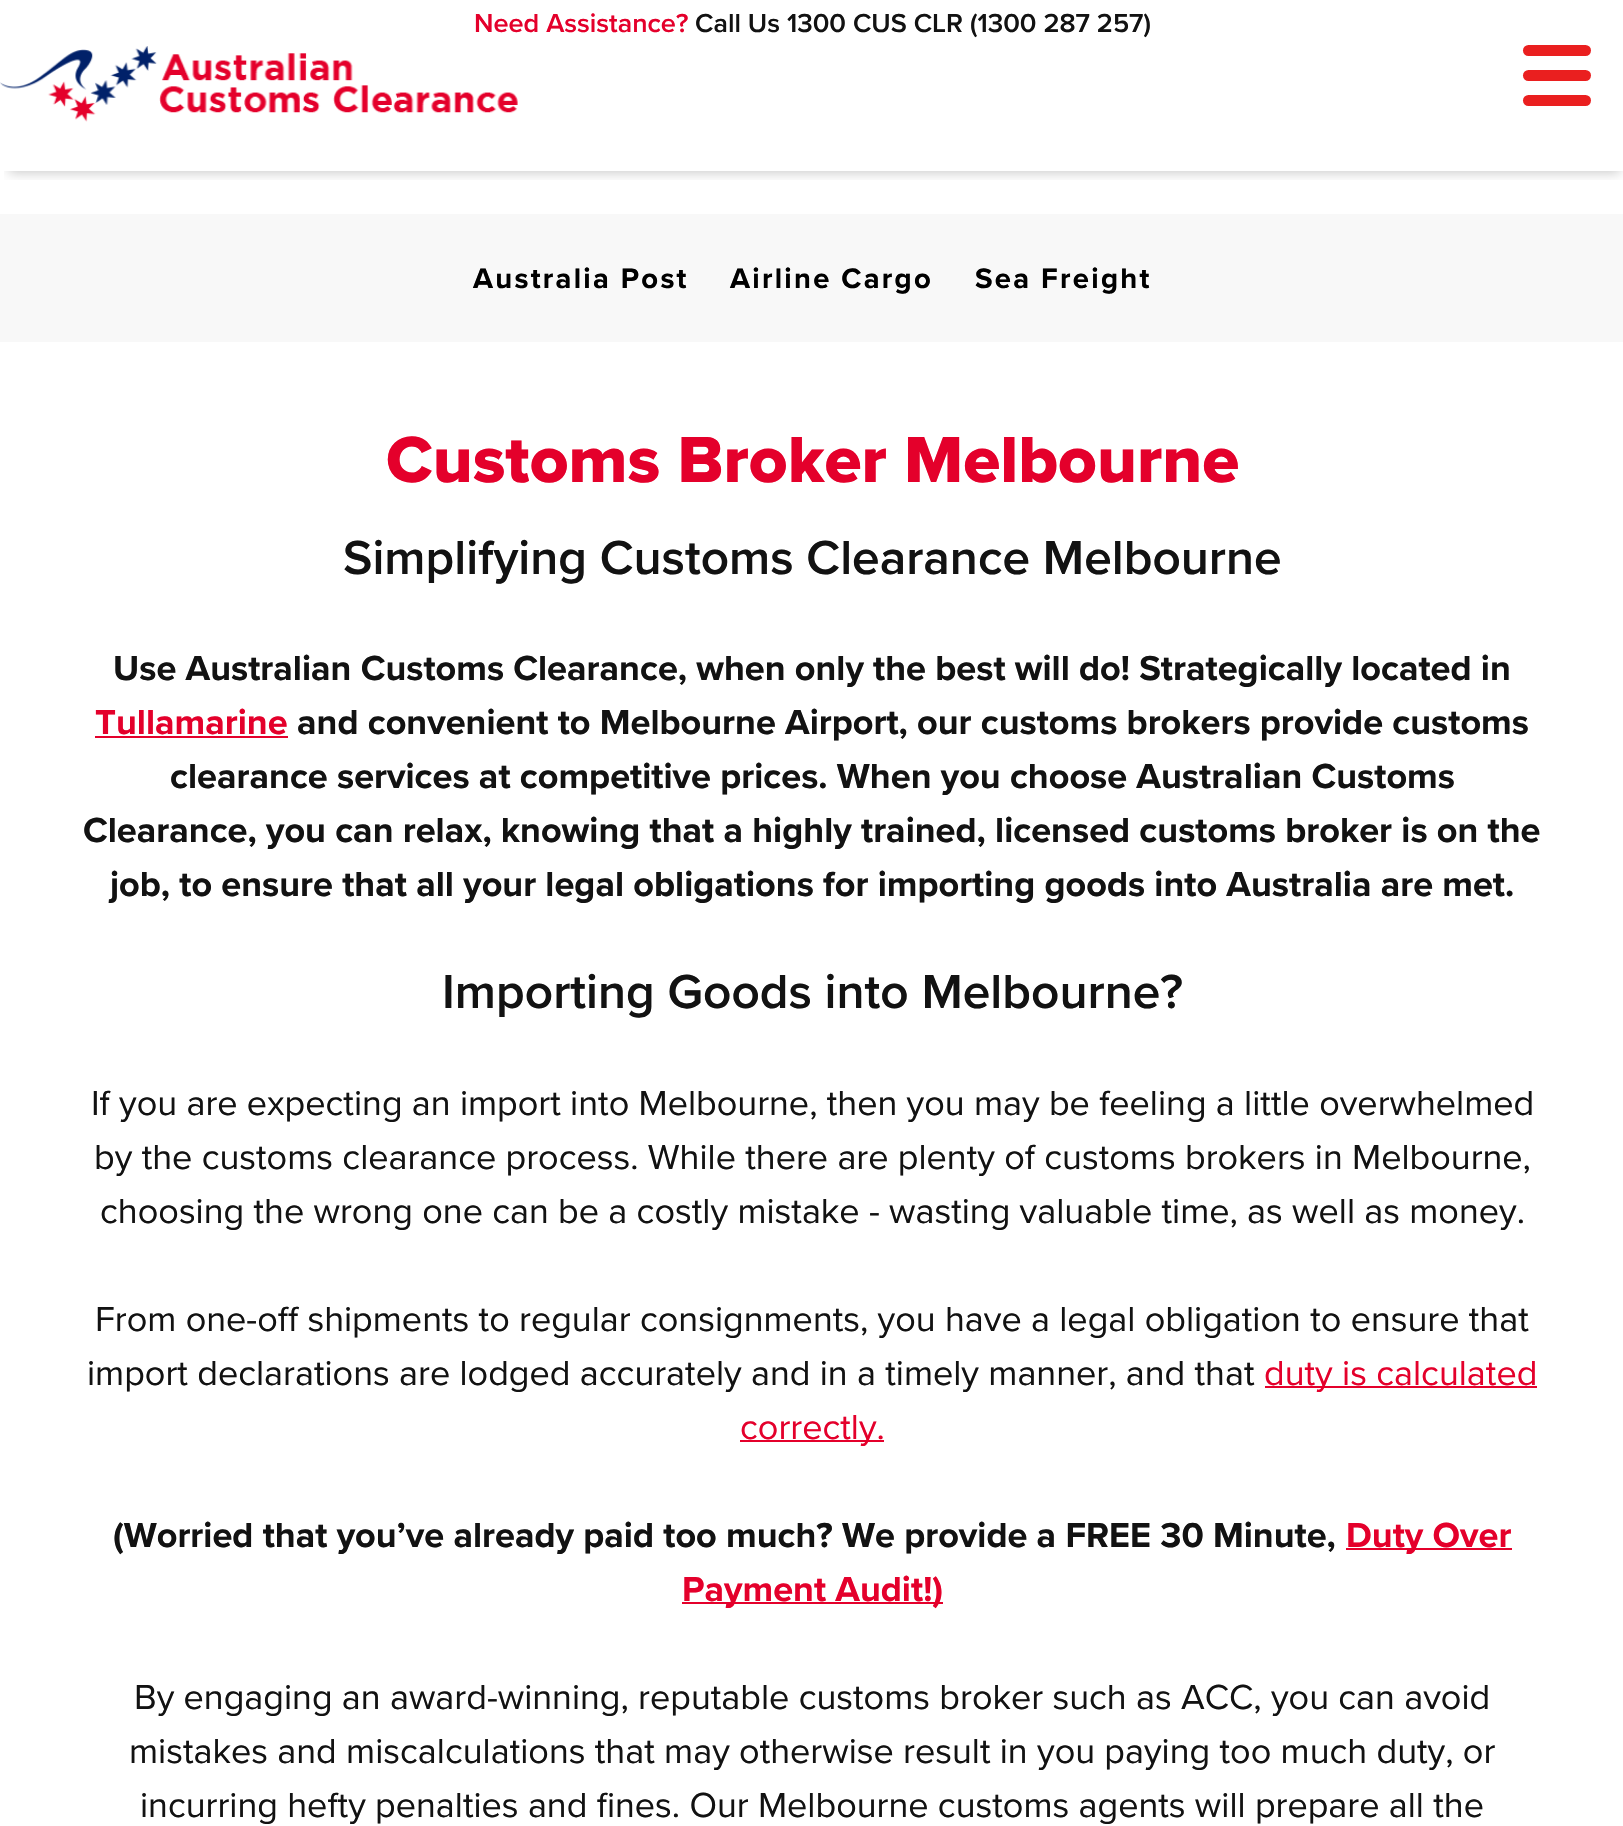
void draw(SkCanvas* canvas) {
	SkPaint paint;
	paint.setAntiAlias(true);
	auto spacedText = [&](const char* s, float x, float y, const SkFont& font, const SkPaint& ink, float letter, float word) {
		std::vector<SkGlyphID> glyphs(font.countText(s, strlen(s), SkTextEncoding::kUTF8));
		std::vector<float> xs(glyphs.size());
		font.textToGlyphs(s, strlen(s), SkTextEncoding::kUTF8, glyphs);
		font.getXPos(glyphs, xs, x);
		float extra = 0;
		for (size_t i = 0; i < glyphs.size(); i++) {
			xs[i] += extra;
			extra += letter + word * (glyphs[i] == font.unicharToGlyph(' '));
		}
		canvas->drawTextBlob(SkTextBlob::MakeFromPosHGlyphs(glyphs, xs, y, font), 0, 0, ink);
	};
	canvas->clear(0xffffffff);
	canvas->save();
	canvas->clipRect(SkRect::MakeXYWH(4, 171, 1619, 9));
	paint.setColor(0x33000000);
	paint.setMaskFilter(SkMaskFilter::MakeBlur(kNormal_SkBlurStyle, 5.5));
	canvas->drawRect(SkRect::MakeXYWH(9, 16, 1611, 157), paint);
	paint.setMaskFilter(nullptr);
	canvas->restore();
	SkFont f1(fontMgr->matchFamilyStyle("Proxima Nova", SkFontStyle(600, SkFontStyle::kNormal_Width, SkFontStyle::kUpright_Slant)), 27);
	f1.setSubpixel(true);
	paint.setColor(0xffe4002b);
	canvas->drawString("Need Assistance?", 474, 32, f1, paint);
	paint.setColor(0xff121212);
	canvas->drawString("Call Us 1300 CUS CLR (1300 287 257)", 695, 32, f1, paint);
	canvas->drawImageRect(SkImages::DeferredFromEncodedData(SkData::MakeFromFileName("img1.png")), SkRect::MakeXYWH(0, 46, 518, 76), SkSamplingOptions());
	paint.setColor(0xffea1f1f);
	canvas->drawRoundRect(SkRect::MakeXYWH(1523, 45, 68, 11), 5.5, 5.5, paint);
	canvas->drawRoundRect(SkRect::MakeXYWH(1523, 70, 68, 11), 5.5, 5.5, paint);
	canvas->drawRoundRect(SkRect::MakeXYWH(1523, 95, 68, 11), 5.5, 5.5, paint);
	paint.setColor(0xfff8f8f8);
	canvas->drawRect(SkRect::MakeXYWH(0, 214, 1623, 128), paint);
	SkFont f2(fontMgr->matchFamilyStyle("Proxima Nova", SkFontStyle::Bold()), 29.25);
	f2.setSubpixel(true);
	paint.setColor(0xff000000);
	spacedText("Australia Post", 473, 288, f2, paint, 2.25, 0);
	spacedText("Airline Cargo", 730, 288, f2, paint, 2.25, 0);
	spacedText("Sea Freight", 975, 288, f2, paint, 2.25, 0);
	SkFont f3(fontMgr->matchFamilyStyle("Proxima Nova", SkFontStyle(800, SkFontStyle::kNormal_Width, SkFontStyle::kUpright_Slant)), 67.5);
	f3.setSubpixel(true);
	paint.setColor(0xffe4002b);
	canvas->drawString("Customs Broker Melbourne", 386, 482, f3, paint);
	SkFont f4(fontMgr->matchFamilyStyle("Proxima Nova", SkFontStyle(600, SkFontStyle::kNormal_Width, SkFontStyle::kUpright_Slant)), 49.5);
	f4.setSubpixel(true);
	paint.setColor(0xff121212);
	canvas->drawString("Simplifying Customs Clearance Melbourne", 343, 574, f4, paint);
	SkFont f5(fontMgr->matchFamilyStyle("Proxima Nova", SkFontStyle::Bold()), 36);
	f5.setSubpixel(true);
	canvas->drawString("Use Australian Customs Clearance, when only the best will do! Strategically located in", 113, 680, f5, paint);
	paint.setColor(0xffe4002b);
	canvas->drawString("Tullamarine", 95, 734, f5, paint);
	canvas->drawRect(SkRect::MakeXYWH(95, 736, 193, 2), paint);
	paint.setColor(0xff121212);
	canvas->drawString("and convenient to Melbourne Airport, our customs brokers provide customs", 297, 734, f5, paint);
	canvas->drawString("clearance services at competitive prices. When you choose Australian Customs", 170, 788, f5, paint);
	canvas->drawString("Clearance, you can relax, knowing that a highly trained, licensed customs broker is on the", 83, 842, f5, paint);
	canvas->drawString("job, to ensure that all your legal obligations for importing goods into Australia are met.", 110, 896, f5, paint);
	canvas->drawString("Importing Goods into Melbourne?", 442, 1008, f4, paint);
	SkFont f6(fontMgr->matchFamilyStyle("Proxima Nova", SkFontStyle::Normal()), 36);
	f6.setSubpixel(true);
	canvas->drawString("If you are expecting an import into Melbourne, then you may be feeling a little overwhelmed", 91, 1115, f6, paint);
	canvas->drawString("by the customs clearance process. While there are plenty of customs brokers in Melbourne,", 94, 1169, f6, paint);
	canvas->drawString("choosing the wrong one can be a costly mistake - wasting valuable time, as well as money.", 100, 1223, f6, paint);
	canvas->drawString("From one-off shipments to regular consignments, you have a legal obligation to ensure that", 95, 1331, f6, paint);
	canvas->drawString("import declarations are lodged accurately and in a timely manner, and that", 87, 1385, f6, paint);
	paint.setColor(0xffe4002b);
	canvas->drawRect(SkRect::MakeXYWH(1265, 1386, 272, 2), paint);
	canvas->drawString("duty is calculated", 1264, 1385, f6, paint);
	canvas->drawRect(SkRect::MakeXYWH(740, 1440, 144, 2), paint);
	canvas->drawString("correctly.", 740, 1439, f6, paint);
	paint.setColor(0xff121212);
	canvas->drawString("(Worried that you’ve already paid too much? We provide a FREE 30 Minute,", 113, 1547, f5, paint);
	paint.setColor(0xffe4002b);
	canvas->drawRect(SkRect::MakeXYWH(1346, 1548, 166, 2), paint);
	canvas->drawString("Duty Over", 1346, 1547, f5, paint);
	canvas->drawRect(SkRect::MakeXYWH(682, 1602, 261, 2), paint);
	canvas->drawString("Payment Audit!)", 682, 1601, f5, paint);
	paint.setColor(0xff121212);
	canvas->drawString("By engaging an award-winning, reputable customs broker such as ACC, you can avoid", 134, 1709, f6, paint);
	canvas->drawString("mistakes and miscalculations that may otherwise result in you paying too much duty, or", 129, 1763, f6, paint);
	canvas->drawString("incurring hefty penalties and fines. Our Melbourne customs agents will prepare all the", 140, 1817, f6, paint);
}
